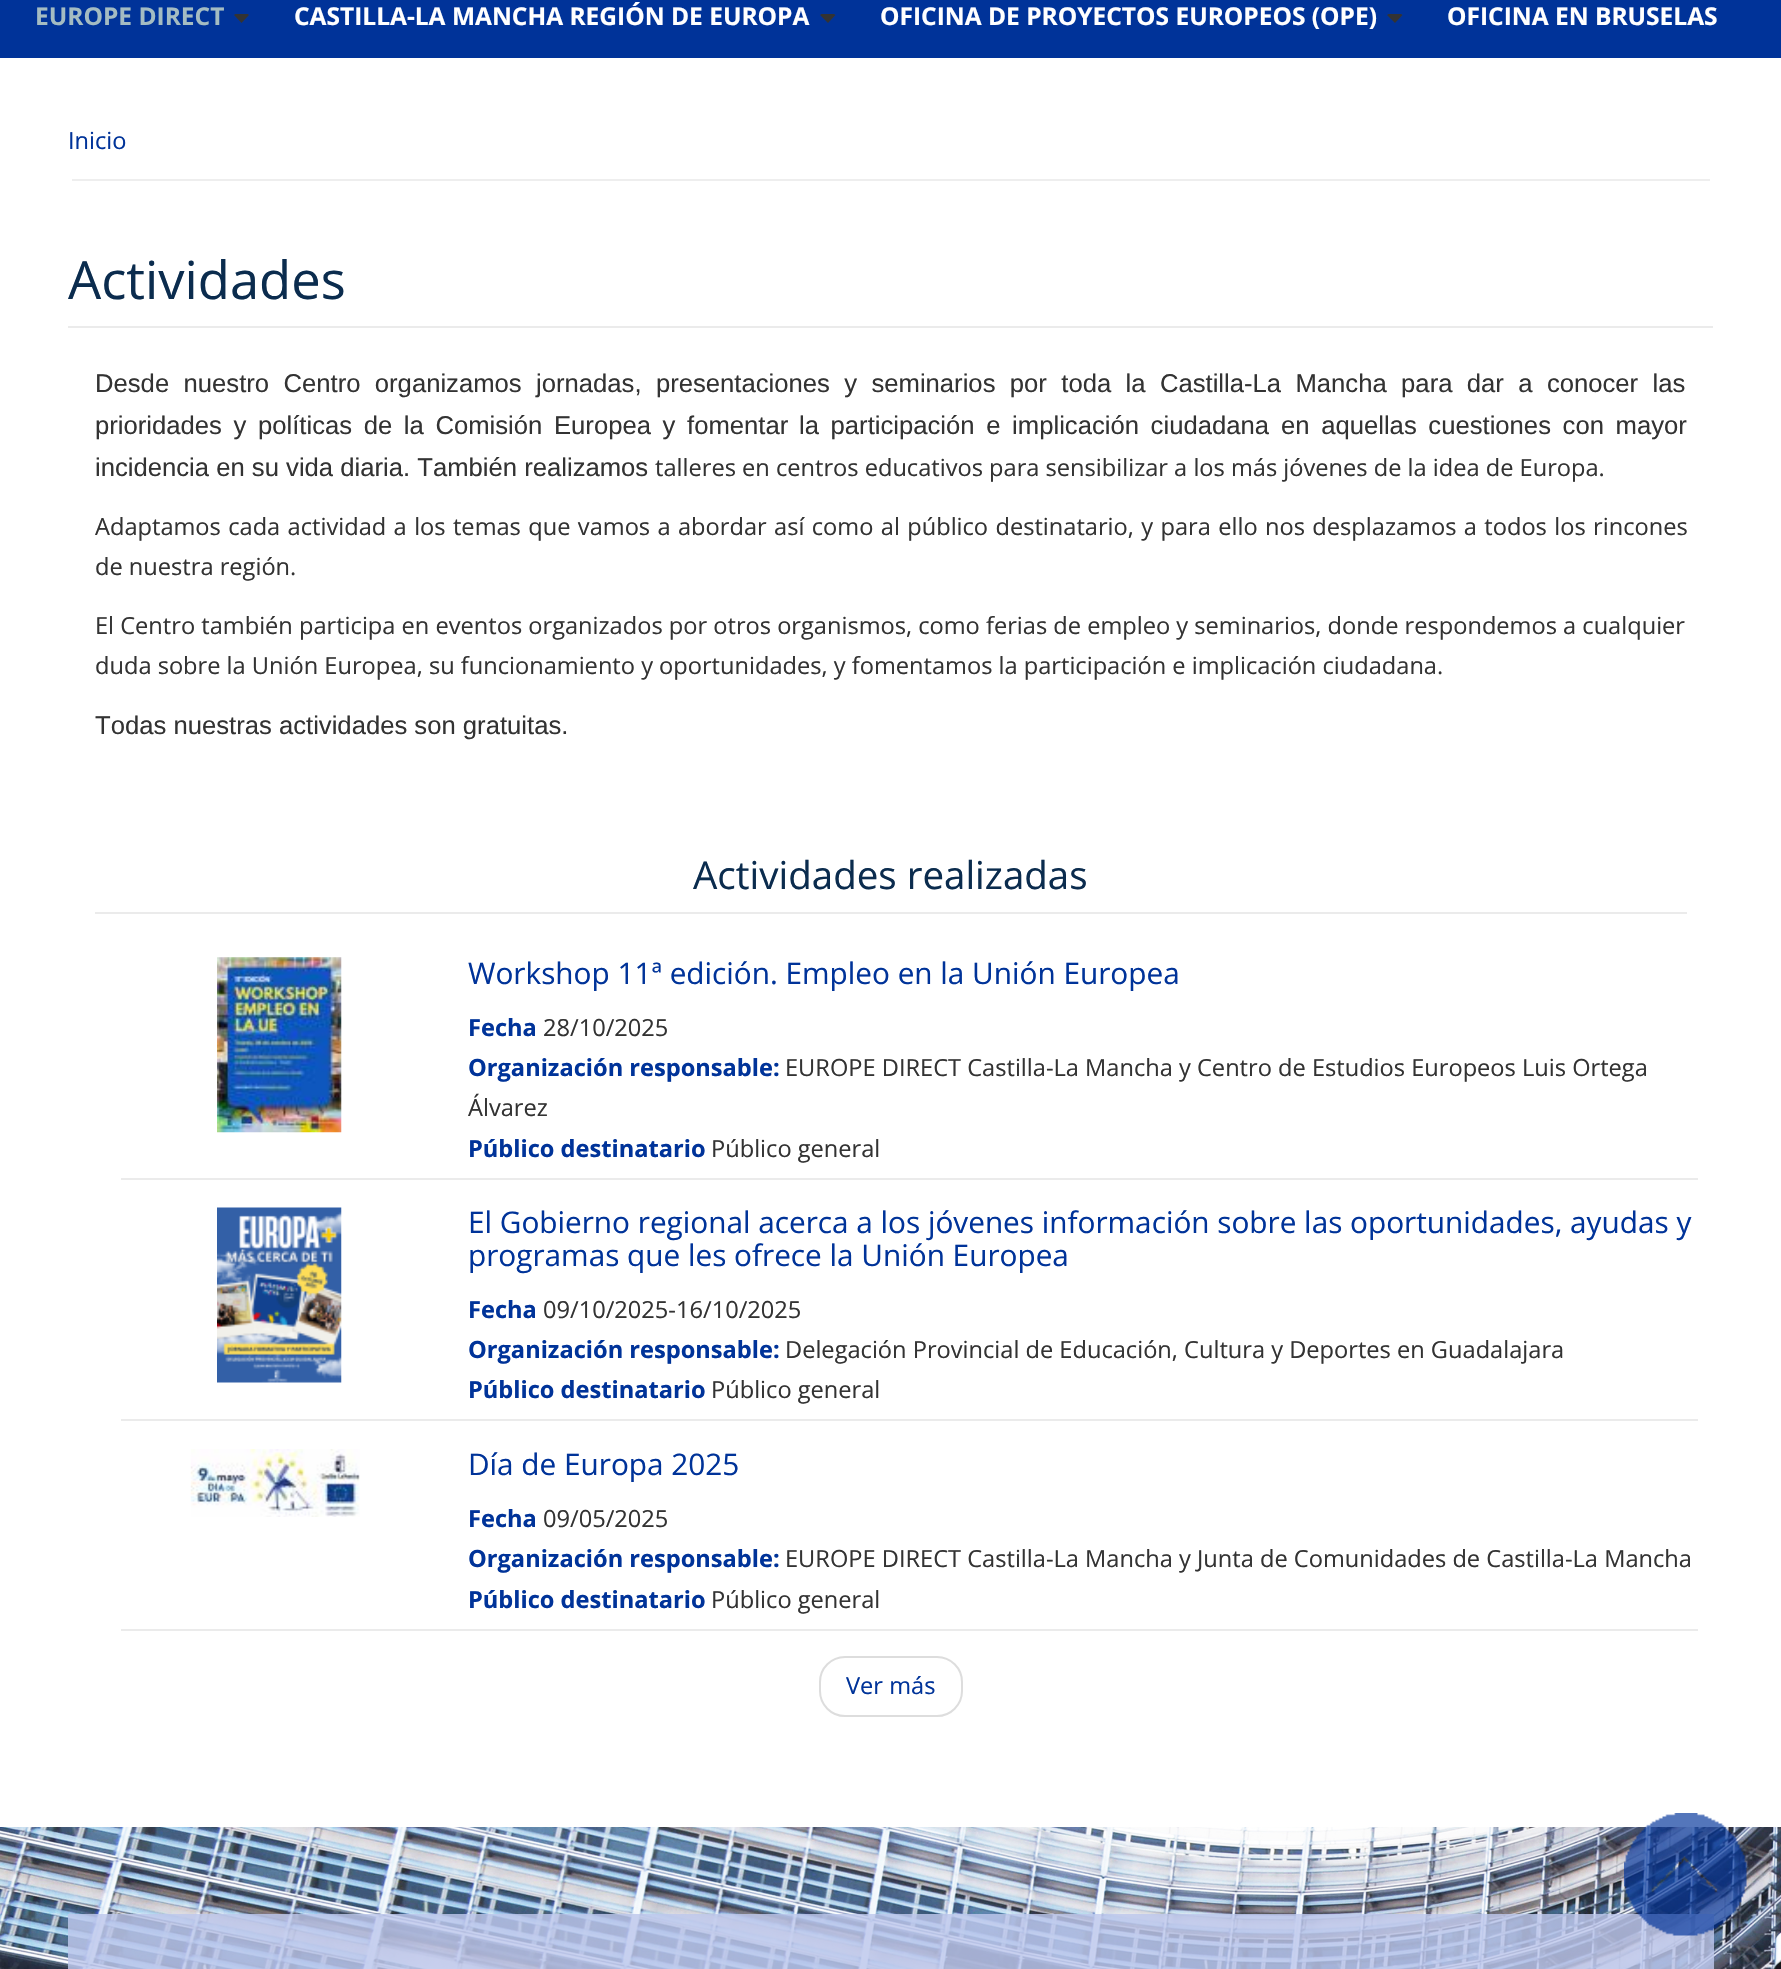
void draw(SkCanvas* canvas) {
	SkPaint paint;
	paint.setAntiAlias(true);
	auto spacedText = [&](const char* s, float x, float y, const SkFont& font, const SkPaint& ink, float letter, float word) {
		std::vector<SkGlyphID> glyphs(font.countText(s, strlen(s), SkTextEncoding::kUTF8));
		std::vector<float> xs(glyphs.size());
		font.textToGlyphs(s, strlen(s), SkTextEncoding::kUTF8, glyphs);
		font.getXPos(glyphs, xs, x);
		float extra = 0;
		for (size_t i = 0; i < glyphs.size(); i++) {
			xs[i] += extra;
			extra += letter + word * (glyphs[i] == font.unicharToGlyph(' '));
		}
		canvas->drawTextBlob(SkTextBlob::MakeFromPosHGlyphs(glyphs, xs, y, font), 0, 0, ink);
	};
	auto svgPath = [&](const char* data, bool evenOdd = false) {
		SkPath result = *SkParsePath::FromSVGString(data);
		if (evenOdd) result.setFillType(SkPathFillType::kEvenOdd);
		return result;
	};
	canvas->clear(0xffffffff);
	paint.setColor(0xff003399);
	canvas->drawRect(SkRect::MakeXYWH(0, 0, 1781, 58), paint);
	SkFont f1(fontMgr->matchFamilyStyle("Open Sans", SkFontStyle::Bold()), 24.5);
	f1.setSubpixel(true);
	paint.setColor(0xffa4bcc2);
	canvas->drawString("EUROPE DIRECT", 35, 25, f1, paint);
	paint.setColor(0xff333333);
	canvas->drawPath(svgPath("M236 14H247C248 14 248.5 14.5 249 15L241.5 23L234 15C234.5 14.5 235 14 236 14Z"), paint);
	paint.setColor(0xffffffff);
	canvas->drawString("CASTILLA-LA MANCHA REGIÓN DE EUROPA", 294, 25, f1, paint);
	paint.setColor(0xff333333);
	canvas->drawPath(svgPath("M822.5 14C821.5 14 820.5 14.5 820 15L828 23L835.5 15C835 14.5 834 14 833 14Z"), paint);
	paint.setColor(0xffffffff);
	canvas->drawString("OFICINA DE PROYECTOS EUROPEOS (OPE)", 880, 25, f1, paint);
	paint.setColor(0xff333333);
	canvas->drawPath(svgPath("M1389.5 14C1388.5 14 1387.5 14.5 1387 15L1395 23L1402.5 15C1402 14.5 1401 14 1400 14Z"), paint);
	paint.setColor(0xffffffff);
	canvas->drawString("OFICINA EN BRUSELAS", 1447, 25, f1, paint);
	paint.setColor(0xffeeeeee);
	canvas->drawRect(SkRect::MakeXYWH(72, 179, 1638, 2), paint);
	SkFont f2(fontMgr->matchFamilyStyle("Open Sans", SkFontStyle::Normal()), 23.62);
	f2.setSubpixel(true);
	paint.setColor(0xff003399);
	canvas->drawString("Inicio", 68, 149, f2, paint);
	paint.setColor(0xffebebeb);
	canvas->drawRect(SkRect::MakeXYWH(68, 326, 1645, 2), paint);
	SkFont f3(fontMgr->matchFamilyStyle("Open Sans", SkFontStyle::Normal()), 52.5);
	f3.setSubpixel(true);
	paint.setColor(0xff0b2c4e);
	canvas->drawString("Actividades", 68, 299, f3, paint);
	SkFont f4(fontMgr->matchFamilyStyle("Liberation Sans", SkFontStyle::Normal()), 25.65);
	f4.setSubpixel(true);
	paint.setColor(0xff333333);
	spacedText("Desde nuestro Centro organizamos", 95, 392, f4, paint, 0, 7.25);
	spacedText("jornadas, presentaciones y seminarios por toda la Castilla-La Mancha para dar a conocer las", 536, 392, f4, paint, 0, 7.25);
	spacedText("prioridades y políticas de la Comisión Europea y fomentar", 95, 434, f4, paint, 0, 4.5);
	spacedText("la participación e implicación ciudadana", 799, 434, f4, paint, 0, 4.5);
	paint.setColor(0xffffffff);
	canvas->drawRect(SkRect::MakeXYWH(1269, 432, 1, 2), paint);
	paint.setColor(0xff333333);
	spacedText("en aquellas cuestiones con mayor", 1281, 434, f4, paint, 0, 4.5);
	canvas->drawString("incidencia en su vida diaria. También realizamos", 95, 476, f4, paint);
	canvas->drawString("talleres en centros educativos para sensibilizar a los más jóvenes de la idea de Europa.", 655, 476, f2, paint);
	spacedText("Adaptamos cada actividad a los temas que vamos a abordar así como al público destinatario, y para ello nos desplazamos a todos los rincones", 95, 535, f2, paint, 0, 1.25);
	canvas->drawString("de nuestra región.", 95, 575, f2, paint);
	canvas->drawString("El Centro también participa en eventos organizados por otros organismos, como ferias de empleo y seminarios, donde respondemos a cualquier", 95, 634, f2, paint);
	canvas->drawString("duda sobre la Unión Europea, su funcionamiento y oportunidades, y fomentamos la participación e implicación ciudadana.", 95, 674, f2, paint);
	canvas->drawString("Todas nuestras actividades son gratuitas.", 95, 734, f4, paint);
	paint.setColor(0xffebebeb);
	canvas->drawRect(SkRect::MakeXYWH(95, 912, 1592, 2), paint);
	SkFont f5(fontMgr->matchFamilyStyle("Open Sans", SkFontStyle::Normal()), 38.5);
	f5.setSubpixel(true);
	paint.setColor(0xff0b2c4e);
	canvas->drawString("Actividades realizadas", 693, 889, f5, paint);
	paint.setColor(0xffebebeb);
	canvas->drawRect(SkRect::MakeXYWH(121, 1178, 1577, 2), paint);
	canvas->drawImageRect(SkImages::DeferredFromEncodedData(SkData::MakeFromFileName("img1.png")), SkRect::MakeXYWH(217, 957, 125, 176), SkSamplingOptions());
	SkFont f6(fontMgr->matchFamilyStyle("Open Sans", SkFontStyle::Normal()), 29.75);
	f6.setSubpixel(true);
	paint.setColor(0xff003399);
	canvas->drawString("Workshop 11ª edición. Empleo en la Unión Europea", 468, 984, f6, paint);
	SkFont f7(fontMgr->matchFamilyStyle("Open Sans", SkFontStyle::Bold()), 23.62);
	f7.setSubpixel(true);
	canvas->drawString("Fecha", 468, 1036, f7, paint);
	paint.setColor(0xff333333);
	canvas->drawString("28/10/2025", 543, 1036, f2, paint);
	paint.setColor(0xff003399);
	canvas->drawString("Organización responsable:", 468, 1076, f7, paint);
	paint.setColor(0xff333333);
	canvas->drawString("EUROPE DIRECT Castilla-La Mancha y Centro de Estudios Europeos Luis Ortega", 785, 1076, f2, paint);
	canvas->drawString("Álvarez", 468, 1116, f2, paint);
	paint.setColor(0xff003399);
	canvas->drawString("Público destinatario", 468, 1157, f7, paint);
	paint.setColor(0xff333333);
	canvas->drawString("Público general", 711, 1157, f2, paint);
	paint.setColor(0xffebebeb);
	canvas->drawRect(SkRect::MakeXYWH(121, 1419, 1577, 2), paint);
	canvas->drawImageRect(SkImages::DeferredFromEncodedData(SkData::MakeFromFileName("img2.png")), SkRect::MakeXYWH(217, 1207, 125, 176), SkSamplingOptions());
	paint.setColor(0xff003399);
	canvas->drawString("El Gobierno regional acerca a los jóvenes información sobre las oportunidades, ayudas y", 468, 1233, f6, paint);
	canvas->drawString("programas que les ofrece la Unión Europea", 468, 1266, f6, paint);
	canvas->drawString("Fecha", 468, 1318, f7, paint);
	paint.setColor(0xff333333);
	canvas->drawString("09/10/2025-16/10/2025", 543, 1318, f2, paint);
	paint.setColor(0xff003399);
	canvas->drawString("Organización responsable:", 468, 1358, f7, paint);
	paint.setColor(0xff333333);
	canvas->drawString("Delegación Provincial de Educación, Cultura y Deportes en Guadalajara", 785, 1358, f2, paint);
	paint.setColor(0xff003399);
	canvas->drawString("Público destinatario", 468, 1398, f7, paint);
	paint.setColor(0xff333333);
	canvas->drawString("Público general", 711, 1398, f2, paint);
	paint.setColor(0xffebebeb);
	canvas->drawRect(SkRect::MakeXYWH(121, 1629, 1577, 2), paint);
	canvas->drawImageRect(SkImages::DeferredFromEncodedData(SkData::MakeFromFileName("img3.png")), SkRect::MakeXYWH(190, 1449, 170, 68), SkSamplingOptions());
	paint.setColor(0xff003399);
	canvas->drawString("Día de Europa 2025", 468, 1475, f6, paint);
	canvas->drawString("Fecha", 468, 1527, f7, paint);
	paint.setColor(0xff333333);
	canvas->drawString("09/05/2025", 543, 1527, f2, paint);
	paint.setColor(0xff003399);
	canvas->drawString("Organización responsable:", 468, 1567, f7, paint);
	paint.setColor(0xff333333);
	canvas->drawString("EUROPE DIRECT Castilla-La Mancha y Junta de Comunidades de Castilla-La Mancha", 785, 1567, f2, paint);
	paint.setColor(0xff003399);
	canvas->drawString("Público destinatario", 468, 1608, f7, paint);
	paint.setColor(0xff333333);
	canvas->drawString("Público general", 711, 1608, f2, paint);
	paint.setStroke(true);
	paint.setStrokeWidth(2);
	paint.setColor(0xffdddddd);
	canvas->drawRoundRect(SkRect::MakeXYWH(820, 1657, 142, 59), 25, 25, paint);
	paint.setStroke(false);
	paint.setColor(0xff003399);
	canvas->drawString("Ver más", 846, 1694, f2, paint);
	canvas->drawImageRect(SkImages::DeferredFromEncodedData(SkData::MakeFromFileName("img4.png")), SkRect::MakeXYWH(0, 1827, 1781, 142), SkSamplingOptions());
	paint.setColor(0xd1bdc7eb);
	canvas->drawRect(SkRect::MakeXYWH(68, 1914, 1646, 55), paint);
	canvas->drawImageRect(SkImages::DeferredFromEncodedData(SkData::MakeFromFileName("img5.png")), SkRect::MakeXYWH(1624, 1813, 123, 123), SkSamplingOptions());
}
